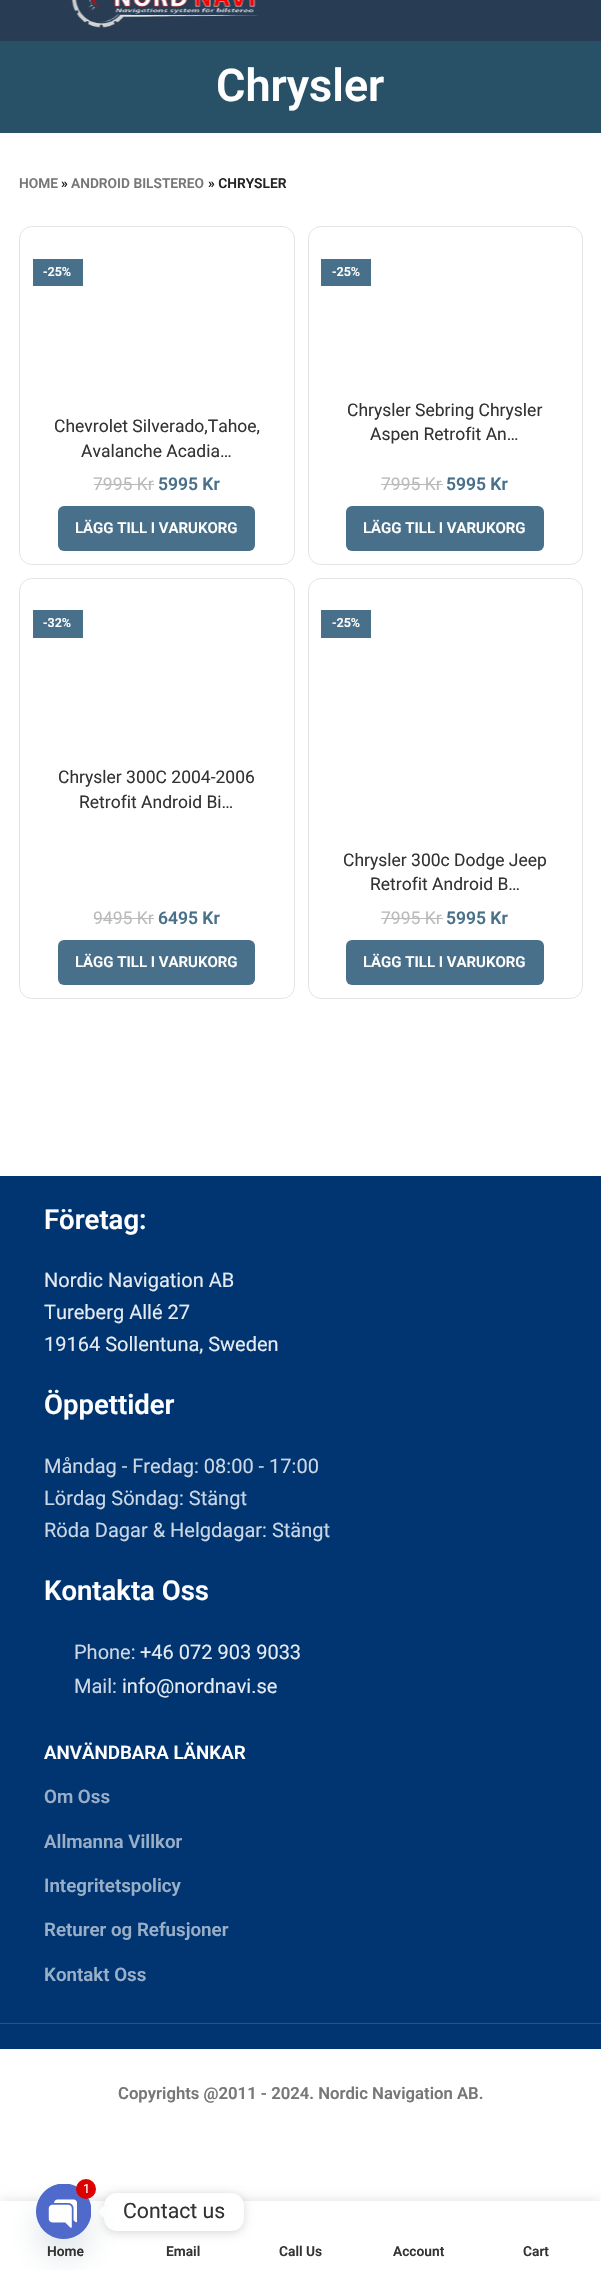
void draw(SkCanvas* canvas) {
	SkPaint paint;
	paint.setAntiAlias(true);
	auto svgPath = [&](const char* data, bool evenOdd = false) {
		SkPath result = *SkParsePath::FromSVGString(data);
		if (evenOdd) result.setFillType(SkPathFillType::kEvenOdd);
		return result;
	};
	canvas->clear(0xffffffff);
	paint.setColor(0xff283d54);
	canvas->drawRect(SkRect::MakeXYWH(0, 0, 601, 41), paint);
	canvas->drawImageRect(SkImages::DeferredFromEncodedData(SkData::MakeFromFileName("img1.png")), SkRect::MakeXYWH(71, 0, 187, 28), SkSamplingOptions());
	paint.setColor(0xff285066);
	canvas->drawRect(SkRect::MakeXYWH(0, 41, 601, 92), paint);
	SkFont f1(fontMgr->matchFamilyStyle("Roboto", SkFontStyle(600, SkFontStyle::kNormal_Width, SkFontStyle::kUpright_Slant)), 45);
	f1.setSubpixel(true);
	paint.setColor(0xffffffff);
	canvas->drawString("Chrysler", 216, 101, f1, paint);
	SkFont f2(fontMgr->matchFamilyStyle("Roboto", SkFontStyle(600, SkFontStyle::kNormal_Width, SkFontStyle::kUpright_Slant)), 13.75);
	f2.setSubpixel(true);
	paint.setColor(0xff777777);
	canvas->drawString("HOME", 19, 188, f2, paint);
	paint.setColor(0xff242424);
	canvas->drawString("»", 61, 188, f2, paint);
	paint.setColor(0xff777777);
	canvas->drawString("ANDROID BILSTEREO", 71, 188, f2, paint);
	paint.setColor(0xff242424);
	canvas->drawString("» CHRYSLER", 208, 188, f2, paint);
	paint.setStroke(true);
	paint.setStrokeWidth(1);
	paint.setColor(0xffe4e4e4);
	canvas->drawRoundRect(SkRect::MakeXYWH(19.5, 226.5, 275, 338), 12.5, 12.5, paint);
	paint.setStroke(false);
	paint.setColor(0xff48708a);
	canvas->drawRect(SkRect::MakeXYWH(33, 259, 50, 27), paint);
	SkFont f3(fontMgr->matchFamilyStyle("Roboto", SkFontStyle(600, SkFontStyle::kNormal_Width, SkFontStyle::kUpright_Slant)), 12.5);
	f3.setSubpixel(true);
	paint.setColor(0xffffffff);
	canvas->drawString("-25%", 43, 276, f3, paint);
	SkFont f4(fontMgr->matchFamilyStyle("Roboto", SkFontStyle::Normal()), 17.5);
	f4.setSubpixel(true);
	paint.setColor(0xff333333);
	canvas->drawString("Chevrolet Silverado,Tahoe,", 54, 432, f4, paint);
	canvas->drawString("Avalanche Acadia…", 81, 457, f4, paint);
	paint.setColor(0xffbbbbbb);
	canvas->drawString("7995 Kr", 93, 490, f4, paint);
	canvas->drawRect(SkRect::MakeXYWH(94, 484, 60, 1), paint);
	SkFont f5(fontMgr->matchFamilyStyle("Roboto", SkFontStyle(600, SkFontStyle::kNormal_Width, SkFontStyle::kUpright_Slant)), 17.5);
	f5.setSubpixel(true);
	paint.setColor(0xff48708a);
	canvas->drawString("5995 Kr", 158, 490, f5, paint);
	canvas->drawRoundRect(SkRect::MakeXYWH(58, 506, 197, 45), 6, 6, paint);
	SkFont f6(fontMgr->matchFamilyStyle("Roboto", SkFontStyle(600, SkFontStyle::kNormal_Width, SkFontStyle::kUpright_Slant)), 15);
	f6.setSubpixel(true);
	paint.setColor(0xffffffff);
	canvas->drawString("LÄGG TILL I VARUKORG", 75, 533, f6, paint);
	paint.setStroke(true);
	paint.setColor(0xffe4e4e4);
	canvas->drawRoundRect(SkRect::MakeXYWH(308.5, 226.5, 274, 338), 12.5, 12.5, paint);
	paint.setStroke(false);
	paint.setColor(0xff48708a);
	canvas->drawRect(SkRect::MakeXYWH(321, 259, 50, 27), paint);
	paint.setColor(0xffffffff);
	canvas->drawString("-25%", 332, 276, f3, paint);
	paint.setColor(0xff333333);
	canvas->drawString("Chrysler Sebring Chrysler", 347, 416, f4, paint);
	canvas->drawString("Aspen Retrofit An…", 370, 440, f4, paint);
	paint.setColor(0xffbbbbbb);
	canvas->drawString("7995 Kr", 381, 490, f4, paint);
	canvas->drawRect(SkRect::MakeXYWH(381, 484, 62, 1), paint);
	paint.setColor(0xff48708a);
	canvas->drawString("5995 Kr", 446, 490, f5, paint);
	canvas->drawRoundRect(SkRect::MakeXYWH(346, 506, 198, 45), 6, 6, paint);
	paint.setColor(0xffffffff);
	canvas->drawString("LÄGG TILL I VARUKORG", 363, 533, f6, paint);
	paint.setStroke(true);
	paint.setColor(0xffe4e4e4);
	canvas->drawRoundRect(SkRect::MakeXYWH(19.5, 578.5, 275, 420), 12.5, 12.5, paint);
	paint.setStroke(false);
	paint.setColor(0xff48708a);
	canvas->drawRect(SkRect::MakeXYWH(33, 610, 50, 28), paint);
	paint.setColor(0xffffffff);
	canvas->drawString("-32%", 43, 627, f3, paint);
	paint.setColor(0xff333333);
	canvas->drawString("Chrysler 300C 2004-2006", 58, 783, f4, paint);
	canvas->drawString("Retrofit Android Bi…", 79, 808, f4, paint);
	paint.setColor(0xffbbbbbb);
	canvas->drawString("9495 Kr", 93, 924, f4, paint);
	canvas->drawRect(SkRect::MakeXYWH(94, 918, 60, 1), paint);
	paint.setColor(0xff48708a);
	canvas->drawString("6495 Kr", 158, 924, f5, paint);
	canvas->drawRoundRect(SkRect::MakeXYWH(58, 940, 197, 45), 6, 6, paint);
	paint.setColor(0xffffffff);
	canvas->drawString("LÄGG TILL I VARUKORG", 75, 967, f6, paint);
	paint.setStroke(true);
	paint.setColor(0xffe4e4e4);
	canvas->drawRoundRect(SkRect::MakeXYWH(308.5, 578.5, 274, 420), 12.5, 12.5, paint);
	paint.setStroke(false);
	paint.setColor(0xff48708a);
	canvas->drawRect(SkRect::MakeXYWH(321, 610, 50, 28), paint);
	paint.setColor(0xffffffff);
	canvas->drawString("-25%", 332, 627, f3, paint);
	paint.setColor(0xff333333);
	canvas->drawString("Chrysler 300c Dodge Jeep", 343, 866, f4, paint);
	canvas->drawString("Retrofit Android B…", 370, 890, f4, paint);
	paint.setColor(0xffbbbbbb);
	canvas->drawString("7995 Kr", 381, 924, f4, paint);
	canvas->drawRect(SkRect::MakeXYWH(381, 918, 62, 1), paint);
	paint.setColor(0xff48708a);
	canvas->drawString("5995 Kr", 446, 924, f5, paint);
	canvas->drawRoundRect(SkRect::MakeXYWH(346, 940, 198, 45), 6, 6, paint);
	paint.setColor(0xffffffff);
	canvas->drawString("LÄGG TILL I VARUKORG", 363, 967, f6, paint);
	paint.setColor(0xff003572);
	canvas->drawRect(SkRect::MakeXYWH(0, 1176, 601, 873), paint);
	SkFont f7(fontMgr->matchFamilyStyle("Roboto", SkFontStyle(600, SkFontStyle::kNormal_Width, SkFontStyle::kUpright_Slant)), 27.5);
	f7.setSubpixel(true);
	paint.setColor(0xffffffff);
	canvas->drawString("Företag:", 44, 1229, f7, paint);
	SkFont f8(fontMgr->matchFamilyStyle("Roboto", SkFontStyle::Normal()), 20);
	f8.setSubpixel(true);
	paint.setColor(0xffe6ebf1);
	canvas->drawString("Nordic Navigation AB", 44, 1287, f8, paint);
	canvas->drawString("Tureberg Allé 27", 44, 1319, f8, paint);
	canvas->drawString("19164 Sollentuna, Sweden", 44, 1351, f8, paint);
	paint.setColor(0xffffffff);
	canvas->drawString("Öppettider", 44, 1414, f7, paint);
	paint.setColor(0xffccd7e3);
	canvas->drawString("Måndag - Fredag: 08:00 - 17:00", 44, 1473, f8, paint);
	canvas->drawString("Lördag Söndag: Stängt", 44, 1505, f8, paint);
	canvas->drawString("Röda Dagar & Helgdagar: Stängt", 44, 1537, f8, paint);
	paint.setColor(0xffffffff);
	canvas->drawString("Kontakta Oss", 44, 1600, f7, paint);
	paint.setColor(0xffccd7e3);
	canvas->drawString("Phone:", 74, 1659, f8, paint);
	paint.setColor(0xffe6ebf1);
	canvas->drawString("+46 072 903 9033", 140, 1659, f8, paint);
	paint.setColor(0xffccd7e3);
	canvas->drawString("Mail:", 74, 1693, f8, paint);
	paint.setColor(0xffe6ebf1);
	canvas->drawString("info@nordnavi.se", 122, 1693, f8, paint);
	SkFont f9(fontMgr->matchFamilyStyle("Roboto", SkFontStyle(600, SkFontStyle::kNormal_Width, SkFontStyle::kUpright_Slant)), 18.75);
	f9.setSubpixel(true);
	paint.setColor(0xffffffff);
	canvas->drawString("ANVÄNDBARA LÄNKAR", 44, 1759, f9, paint);
	paint.setColor(0xff99aec7);
	canvas->drawString("Om Oss", 44, 1803, f9, paint);
	canvas->drawString("Allmanna Villkor", 44, 1848, f9, paint);
	canvas->drawString("Integritetspolicy", 44, 1892, f9, paint);
	canvas->drawString("Returer og Refusjoner", 44, 1936, f9, paint);
	canvas->drawString("Kontakt Oss", 44, 1981, f9, paint);
	paint.setColor(0xff265387);
	canvas->drawRect(SkRect::MakeXYWH(0, 2023, 601, 1), paint);
	SkFont f10(fontMgr->matchFamilyStyle("Roboto", SkFontStyle(600, SkFontStyle::kNormal_Width, SkFontStyle::kUpright_Slant)), 16.7);
	f10.setSubpixel(true);
	paint.setColor(0xff777777);
	canvas->drawString("Copyrights @2011 - 2024. Nordic Navigation AB.", 118, 2099, f10, paint);
	paint.setColor(0x1f000000);
	paint.setMaskFilter(SkMaskFilter::MakeBlur(kNormal_SkBlurStyle, 5.5));
	canvas->drawRect(SkRect::MakeXYWH(0, 2201, 601, 69), paint);
	paint.setMaskFilter(nullptr);
	paint.setColor(0xffffffff);
	canvas->drawRect(SkRect::MakeXYWH(0, 2201, 601, 69), paint);
	paint.setColor(0x26000000);
	paint.setMaskFilter(SkMaskFilter::MakeBlur(kNormal_SkBlurStyle, 5));
	canvas->drawRoundRect(SkRect::MakeXYWH(104, 2194, 140, 39), 13, 13, paint);
	paint.setMaskFilter(nullptr);
	paint.setColor(0xffffffff);
	canvas->drawRoundRect(SkRect::MakeXYWH(104, 2193, 140, 38), 13, 13, paint);
	canvas->drawPath(svgPath("M104 2205.5V2218L97.5 2212Z"), paint);
	paint.setColor(0x2949687e);
	paint.setMaskFilter(SkMaskFilter::MakeBlur(kNormal_SkBlurStyle, 15));
	canvas->drawRoundRect(SkRect::MakeXYWH(36, 2204, 55, 55), 27.5, 27.5, paint);
	paint.setMaskFilter(nullptr);
	paint.setColor(0xff4f6aca);
	canvas->drawCircle(63.5, 2211.5, 27.5, paint);
	canvas->drawImageRect(SkImages::DeferredFromEncodedData(SkData::MakeFromFileName("img2.png")), SkRect::MakeXYWH(36, 2184, 55, 55), SkSamplingOptions());
	paint.setColor(0xffdd0000);
	canvas->drawCircle(86, 2189, 10, paint);
	SkFont f11(fontMgr->matchFamilyStyle("Roboto", SkFontStyle::Normal()), 12.5);
	f11.setSubpixel(true);
	paint.setColor(0xffffffff);
	canvas->drawString("1", 83, 2193, f11, paint);
	SkFont f12(fontMgr->matchFamilyStyle("Roboto", SkFontStyle::Normal()), 21.25);
	f12.setSubpixel(true);
	paint.setColor(0xff333333);
	canvas->drawString("Contact us", 123, 2218, f12, paint);
	canvas->drawString("Home", 47, 2256, f2, paint);
	canvas->drawString("Email", 166, 2256, f2, paint);
	canvas->drawString("Call Us", 279, 2256, f2, paint);
	canvas->drawString("Account", 393, 2256, f2, paint);
	canvas->drawString("Cart", 523, 2256, f2, paint);
}
